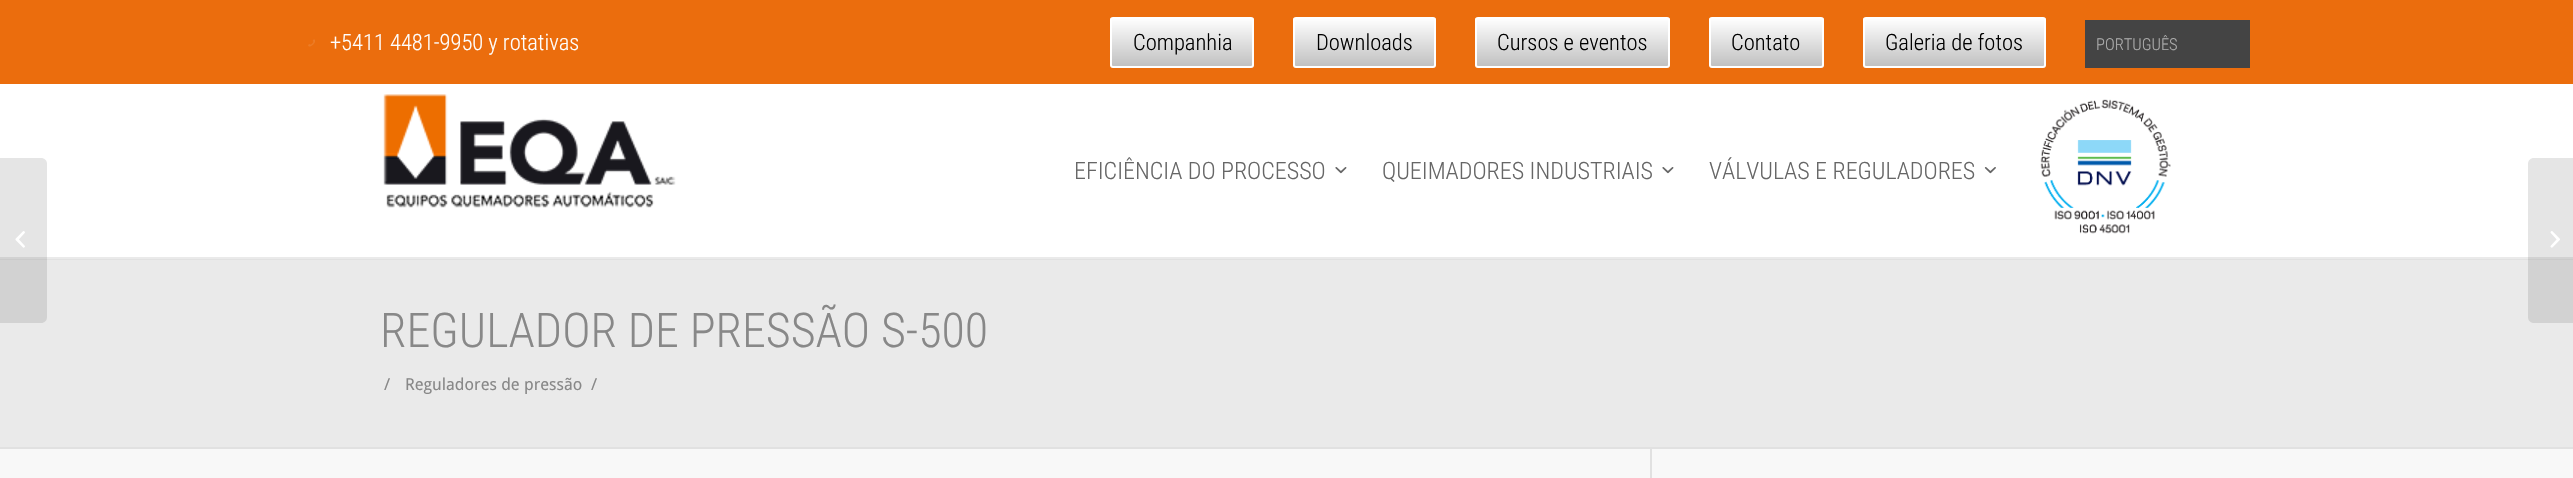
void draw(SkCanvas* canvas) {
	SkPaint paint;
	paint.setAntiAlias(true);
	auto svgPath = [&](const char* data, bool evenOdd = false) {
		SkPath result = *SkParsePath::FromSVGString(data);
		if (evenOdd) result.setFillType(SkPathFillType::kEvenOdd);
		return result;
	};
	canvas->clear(0xffffffff);
	paint.setColor(0xffeb6d0d);
	canvas->drawRect(SkRect::MakeXYWH(0, 0, 2573, 84), paint);
	canvas->drawImageRect(SkImages::DeferredFromEncodedData(SkData::MakeFromFileName("img1.png")), SkRect::MakeXYWH(308, 39, 7, 8), SkSamplingOptions());
	SkFont f1(fontMgr->matchFamilyStyle("Roboto Condensed", SkFontStyle(300, SkFontStyle::kNormal_Width, SkFontStyle::kUpright_Slant)), 22.5);
	f1.setSubpixel(true);
	paint.setColor(0xffffffff);
	canvas->drawString("+5411 4481-9950 y rotativas", 330, 50, f1, paint);
	canvas->save();
	canvas->clipPath(svgPath("M1113 17H1251C1252.5 17 1254 18.5 1254 20V65C1254 66.5 1252.5 68 1251 68H1113C1111.5 68 1110 66.5 1110 65V20C1110 18.5 1111.5 17 1113 17Z"), true);
	{
		const SkColor colors[] = {0xffc1c1c1, 0xffffffff};
		const float stops[] = {0, 1};
		const SkPoint ends[] = {{1182, 66}, {1182, 18}};
		paint.setShader(SkGradientShader::MakeLinear(ends, colors, stops, 2, SkTileMode::kClamp));
		paint.setAlpha(255);
	}
	canvas->drawRect(SkRect::MakeXYWH(1110, 18, 144, 48), paint);
	canvas->restore();
	paint.setStroke(true);
	paint.setStrokeWidth(2);
	paint.setShader(nullptr);
	paint.setColor(0xffffffff);
	canvas->drawRoundRect(SkRect::MakeXYWH(1111, 18, 142, 49), 2, 2, paint);
	paint.setStroke(false);
	paint.setColor(0xff000000);
	canvas->drawString("Companhia", 1133, 50, f1, paint);
	canvas->save();
	canvas->clipPath(svgPath("M1296 17H1433C1434.5 17 1436 18.5 1436 20V65C1436 66.5 1434.5 68 1433 68H1296C1294.5 68 1293 66.5 1293 65V20C1293 18.5 1294.5 17 1296 17Z"), true);
	{
		const SkColor colors[] = {0xffc1c1c1, 0xffffffff};
		const float stops[] = {0, 1};
		const SkPoint ends[] = {{1364, 66}, {1364, 18}};
		paint.setShader(SkGradientShader::MakeLinear(ends, colors, stops, 2, SkTileMode::kClamp));
		paint.setAlpha(255);
	}
	canvas->drawRect(SkRect::MakeXYWH(1293, 18, 143, 48), paint);
	canvas->restore();
	paint.setStroke(true);
	paint.setShader(nullptr);
	paint.setColor(0xffffffff);
	canvas->drawRoundRect(SkRect::MakeXYWH(1294, 18, 141, 49), 2, 2, paint);
	paint.setStroke(false);
	paint.setColor(0xff000000);
	canvas->drawString("Downloads", 1316, 50, f1, paint);
	canvas->save();
	canvas->clipPath(svgPath("M1478 17H1667C1668.5 17 1670 18.5 1670 20V65C1670 66.5 1668.5 68 1667 68H1478C1476.5 68 1475 66.5 1475 65V20C1475 18.5 1476.5 17 1478 17Z"), true);
	{
		const SkColor colors[] = {0xffc1c1c1, 0xffffffff};
		const float stops[] = {0, 1};
		const SkPoint ends[] = {{1572, 66}, {1572, 18}};
		paint.setShader(SkGradientShader::MakeLinear(ends, colors, stops, 2, SkTileMode::kClamp));
		paint.setAlpha(255);
	}
	canvas->drawRect(SkRect::MakeXYWH(1475, 18, 195, 48), paint);
	canvas->restore();
	paint.setStroke(true);
	paint.setShader(nullptr);
	paint.setColor(0xffffffff);
	canvas->drawRoundRect(SkRect::MakeXYWH(1476, 18, 193, 49), 2, 2, paint);
	paint.setStroke(false);
	paint.setColor(0xff000000);
	canvas->drawString("Cursos e eventos", 1497, 50, f1, paint);
	canvas->save();
	canvas->clipPath(svgPath("M1712 17H1821C1822.5 17 1824 18.5 1824 20V65C1824 66.5 1822.5 68 1821 68H1712C1710.5 68 1709 66.5 1709 65V20C1709 18.5 1710.5 17 1712 17Z"), true);
	{
		const SkColor colors[] = {0xffc1c1c1, 0xffffffff};
		const float stops[] = {0, 1};
		const SkPoint ends[] = {{1766, 66}, {1766, 18}};
		paint.setShader(SkGradientShader::MakeLinear(ends, colors, stops, 2, SkTileMode::kClamp));
		paint.setAlpha(255);
	}
	canvas->drawRect(SkRect::MakeXYWH(1709, 18, 115, 48), paint);
	canvas->restore();
	paint.setStroke(true);
	paint.setShader(nullptr);
	paint.setColor(0xffffffff);
	canvas->drawRoundRect(SkRect::MakeXYWH(1710, 18, 113, 49), 2, 2, paint);
	paint.setStroke(false);
	paint.setColor(0xff000000);
	canvas->drawString("Contato", 1731, 50, f1, paint);
	canvas->save();
	canvas->clipPath(svgPath("M1866 17H2043C2044.5 17 2046 18.5 2046 20V65C2046 66.5 2044.5 68 2043 68H1866C1864.5 68 1863 66.5 1863 65V20C1863 18.5 1864.5 17 1866 17Z"), true);
	{
		const SkColor colors[] = {0xffc1c1c1, 0xffffffff};
		const float stops[] = {0, 1};
		const SkPoint ends[] = {{1955, 66}, {1955, 18}};
		paint.setShader(SkGradientShader::MakeLinear(ends, colors, stops, 2, SkTileMode::kClamp));
		paint.setAlpha(255);
	}
	canvas->drawRect(SkRect::MakeXYWH(1863, 18, 183, 48), paint);
	canvas->restore();
	paint.setStroke(true);
	paint.setShader(nullptr);
	paint.setColor(0xffffffff);
	canvas->drawRoundRect(SkRect::MakeXYWH(1864, 18, 181, 49), 2, 2, paint);
	paint.setStroke(false);
	paint.setColor(0xff000000);
	canvas->drawString("Galeria de fotos", 1885, 50, f1, paint);
	paint.setColor(0xff444444);
	canvas->drawRect(SkRect::MakeXYWH(2085, 20, 165, 48), paint);
	SkFont f2(fontMgr->matchFamilyStyle("Roboto Condensed", SkFontStyle(300, SkFontStyle::kNormal_Width, SkFontStyle::kUpright_Slant)), 16.5);
	f2.setSubpixel(true);
	paint.setColor(0xffadadad);
	canvas->drawString("PORTUGUÊS", 2096, 50, f2, paint);
	paint.setColor(0xffeaeaea);
	canvas->drawRect(SkRect::MakeXYWH(0, 257, 2573, 2), paint);
	canvas->drawImageRect(SkImages::DeferredFromEncodedData(SkData::MakeFromFileName("img2.png")), SkRect::MakeXYWH(383, 94, 293, 114), SkSamplingOptions());
	SkFont f3(fontMgr->matchFamilyStyle("Roboto Condensed", SkFontStyle(300, SkFontStyle::kNormal_Width, SkFontStyle::kUpright_Slant)), 24);
	f3.setSubpixel(true);
	paint.setColor(0xff666666);
	canvas->drawString("EFICIÊNCIA DO PROCESSO", 1074, 179, f3, paint);
	canvas->drawImageRect(SkImages::DeferredFromEncodedData(SkData::MakeFromFileName("img3.png")), SkRect::MakeXYWH(1335, 167, 12, 7), SkSamplingOptions());
	canvas->drawString("QUEIMADORES INDUSTRIAIS", 1382, 179, f3, paint);
	canvas->drawImageRect(SkImages::DeferredFromEncodedData(SkData::MakeFromFileName("img3.png")), SkRect::MakeXYWH(1662, 167, 12, 7), SkSamplingOptions());
	canvas->drawString("VÁLVULAS E REGULADORES", 1709, 179, f3, paint);
	canvas->drawImageRect(SkImages::DeferredFromEncodedData(SkData::MakeFromFileName("img4.png")), SkRect::MakeXYWH(1984, 167, 12, 7), SkSamplingOptions());
	canvas->drawImageRect(SkImages::DeferredFromEncodedData(SkData::MakeFromFileName("img5.png")), SkRect::MakeXYWH(2040, 99, 131, 135), SkSamplingOptions());
	paint.setColor(0xffeaeaea);
	canvas->drawRect(SkRect::MakeXYWH(0, 260, 2573, 187), paint);
	paint.setColor(0xffe1e1e1);
	canvas->drawRect(SkRect::MakeXYWH(0, 259, 2573, 1), paint);
	paint.setColor(0x1a000000);
	canvas->drawPath(svgPath("M0 158H41C44.5 158 47 160.5 47 164V317C47 320.5 44.5 323 41 323H0Z"), paint);
	canvas->drawImageRect(SkImages::DeferredFromEncodedData(SkData::MakeFromFileName("img6.png")), SkRect::MakeXYWH(15, 231, 10, 17), SkSamplingOptions());
	canvas->drawPath(svgPath("M2534 158H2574V323H2534C2530.5 323 2528 320.5 2528 317V164C2528 160.5 2530.5 158 2534 158Z"), paint);
	canvas->drawImageRect(SkImages::DeferredFromEncodedData(SkData::MakeFromFileName("img7.png")), SkRect::MakeXYWH(2550, 231, 10, 17), SkSamplingOptions());
	SkFont f4(fontMgr->matchFamilyStyle("Roboto Condensed", SkFontStyle(300, SkFontStyle::kNormal_Width, SkFontStyle::kUpright_Slant)), 48);
	f4.setSubpixel(true);
	paint.setColor(0xff888888);
	canvas->drawString("REGULADOR DE PRESSÃO S-500", 380, 347, f4, paint);
	SkFont f5(fontMgr->matchFamilyStyle("Droid Sans", SkFontStyle::Normal()), 16.5);
	f5.setSubpixel(true);
	canvas->drawString("/", 384, 390, f5, paint);
	canvas->drawString("Reguladores de pressão", 405, 390, f5, paint);
	canvas->drawString("/", 591, 390, f5, paint);
	paint.setColor(0xfff8f8f8);
	canvas->drawRect(SkRect::MakeXYWH(0, 449, 2573, 29), paint);
	paint.setColor(0xffe1e1e1);
	canvas->drawRect(SkRect::MakeXYWH(0, 447, 2573, 2), paint);
	canvas->drawRect(SkRect::MakeXYWH(1650, 449, 2, 29), paint);
}
